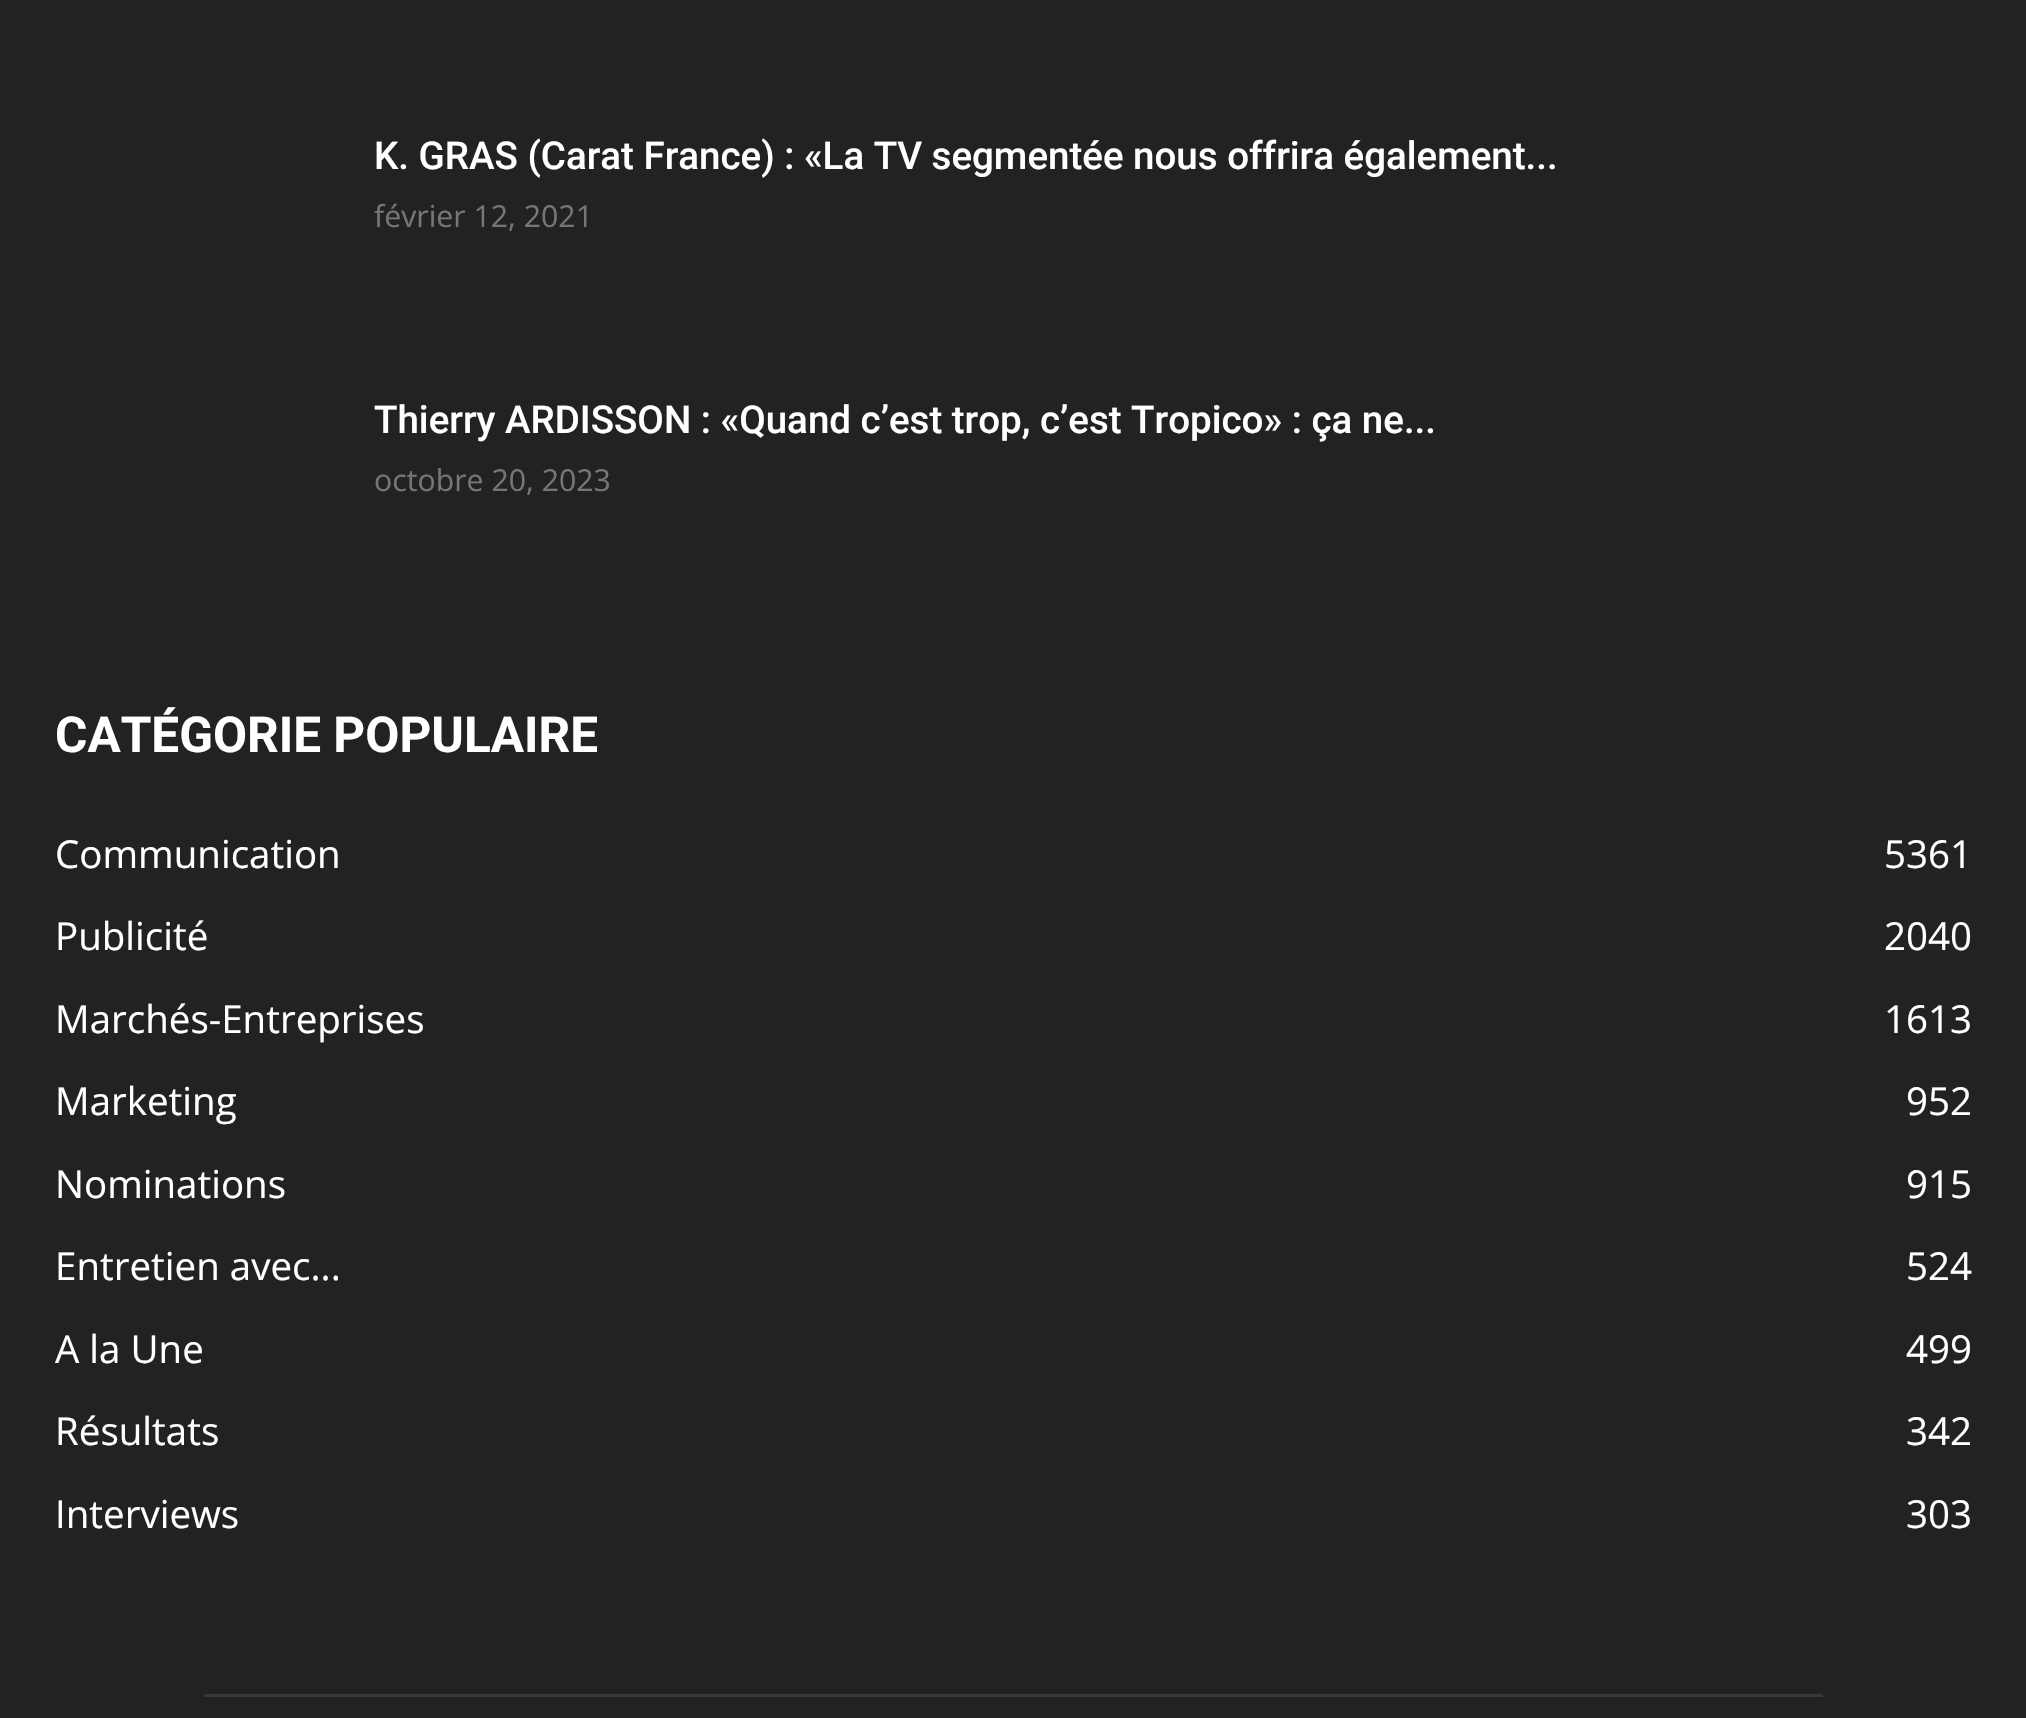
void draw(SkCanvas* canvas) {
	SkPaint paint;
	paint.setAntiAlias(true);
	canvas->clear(0xff222222);
	SkFont f1(fontMgr->matchFamilyStyle("Roboto", SkFontStyle(500, SkFontStyle::kNormal_Width, SkFontStyle::kUpright_Slant)), 38.5);
	f1.setSubpixel(true);
	paint.setColor(0xffffffff);
	canvas->drawString("K. GRAS (Carat France) : «La TV segmentée nous offrira également...", 374, 169, f1, paint);
	SkFont f2(fontMgr->matchFamilyStyle("Open Sans", SkFontStyle::Normal()), 30.25);
	f2.setSubpixel(true);
	paint.setColor(0xff767676);
	canvas->drawString("février 12, 2021", 374, 227, f2, paint);
	paint.setColor(0xffffffff);
	canvas->drawString("Thierry ARDISSON : «Quand c’est trop, c’est Tropico» : ça ne...", 374, 433, f1, paint);
	paint.setColor(0xff767676);
	canvas->drawString("octobre 20, 2023", 374, 491, f2, paint);
	SkFont f3(fontMgr->matchFamilyStyle("Roboto", SkFontStyle::Bold()), 49.5);
	f3.setSubpixel(true);
	paint.setColor(0xffffffff);
	canvas->drawString("CATÉGORIE POPULAIRE", 55, 752, f3, paint);
	SkFont f4(fontMgr->matchFamilyStyle("Open Sans", SkFontStyle::Normal()), 38.5);
	f4.setSubpixel(true);
	canvas->drawString("Communication", 55, 868, f4, paint);
	canvas->drawString("5361", 1884, 868, f4, paint);
	canvas->drawString("Publicité", 55, 950, f4, paint);
	canvas->drawString("2040", 1884, 950, f4, paint);
	canvas->drawString("Marchés-Entreprises", 55, 1033, f4, paint);
	canvas->drawString("1613", 1884, 1033, f4, paint);
	canvas->drawString("Marketing", 55, 1115, f4, paint);
	canvas->drawString("952", 1906, 1115, f4, paint);
	canvas->drawString("Nominations", 55, 1198, f4, paint);
	canvas->drawString("915", 1906, 1198, f4, paint);
	canvas->drawString("Entretien avec...", 55, 1280, f4, paint);
	canvas->drawString("524", 1906, 1280, f4, paint);
	canvas->drawString("A la Une", 55, 1363, f4, paint);
	canvas->drawString("499", 1906, 1363, f4, paint);
	canvas->drawString("Résultats", 55, 1445, f4, paint);
	canvas->drawString("342", 1906, 1445, f4, paint);
	canvas->drawString("Interviews", 55, 1528, f4, paint);
	canvas->drawString("303", 1906, 1528, f4, paint);
	paint.setColor(0xff383838);
	canvas->drawRect(SkRect::MakeXYWH(204, 1694, 1619, 3), paint);
}
